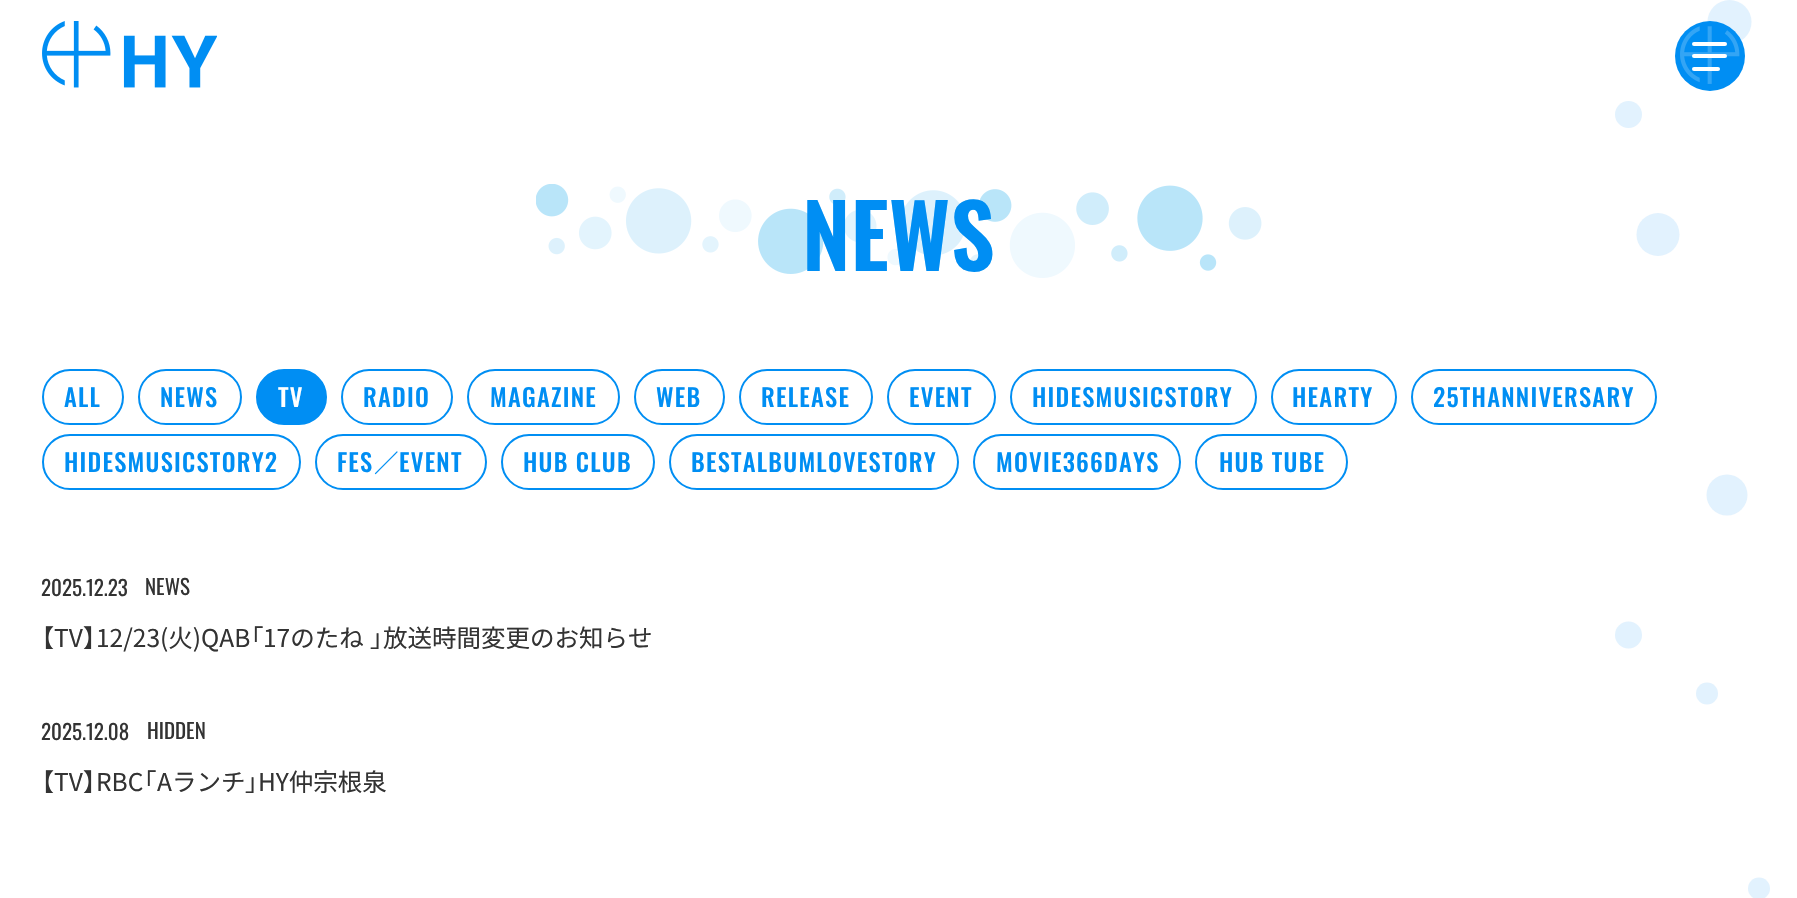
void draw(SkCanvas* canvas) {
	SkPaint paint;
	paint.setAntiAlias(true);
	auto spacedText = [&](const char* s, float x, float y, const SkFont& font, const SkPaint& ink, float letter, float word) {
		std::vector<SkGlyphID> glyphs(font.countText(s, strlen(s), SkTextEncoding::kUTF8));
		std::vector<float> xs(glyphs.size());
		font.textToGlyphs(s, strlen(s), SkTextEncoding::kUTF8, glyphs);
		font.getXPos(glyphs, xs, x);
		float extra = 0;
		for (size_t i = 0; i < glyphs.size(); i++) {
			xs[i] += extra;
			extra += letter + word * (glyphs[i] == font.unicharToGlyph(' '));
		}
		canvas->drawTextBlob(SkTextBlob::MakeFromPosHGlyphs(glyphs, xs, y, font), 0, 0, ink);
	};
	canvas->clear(0xffffffff);
	canvas->drawImageRect(SkImages::DeferredFromEncodedData(SkData::MakeFromFileName("img1.png")), SkRect::MakeXYWH(42, 21, 175, 67), SkSamplingOptions());
	paint.setColor(0xffe2f2fe);
	canvas->drawCircle(1628.5, 114.5, 13.5, paint);
	canvas->drawCircle(1658, 234.5, 21.5, paint);
	canvas->drawCircle(1727, 495, 20.5, paint);
	canvas->drawCircle(1707, 693.5, 11, paint);
	canvas->drawCircle(1759, 888.5, 11, paint);
	canvas->drawCircle(1628.5, 635, 13.5, paint);
	canvas->drawCircle(1729.5, 22, 22, paint);
	paint.setColor(0xff008ef3);
	canvas->drawCircle(1710, 56, 35, paint);
	paint.setColor(0xffffffff);
	canvas->drawRoundRect(SkRect::MakeXYWH(1692, 42, 35, 4), 2, 2, paint);
	canvas->drawImageRect(SkImages::DeferredFromEncodedData(SkData::MakeFromFileName("img2.png")), SkRect::MakeXYWH(1680, 26, 60, 58), SkSamplingOptions());
	canvas->drawRoundRect(SkRect::MakeXYWH(1692, 54, 35, 4), 2, 2, paint);
	canvas->drawRoundRect(SkRect::MakeXYWH(1692, 67, 28, 4), 2, 2, paint);
	canvas->drawImageRect(SkImages::DeferredFromEncodedData(SkData::MakeFromFileName("img3.png")), SkRect::MakeXYWH(536, 184, 726, 94), SkSamplingOptions());
	SkFont f1(fontMgr->matchFamilyStyle("Oswald", SkFontStyle(600, SkFontStyle::kNormal_Width, SkFontStyle::kUpright_Slant)), 87.5);
	f1.setSubpixel(true);
	paint.setColor(0xff008ef3);
	canvas->drawString("NEWS", 802, 271, f1, paint);
	paint.setStroke(true);
	paint.setStrokeWidth(2);
	canvas->drawRoundRect(SkRect::MakeXYWH(43, 370, 80, 54), 27, 27, paint);
	SkFont f2(fontMgr->matchFamilyStyle("Oswald", SkFontStyle(500, SkFontStyle::kNormal_Width, SkFontStyle::kUpright_Slant)), 24.5);
	f2.setSubpixel(true);
	paint.setStroke(false);
	spacedText("ALL", 64, 407, f2, paint, 1.25, 0);
	paint.setStroke(true);
	canvas->drawRoundRect(SkRect::MakeXYWH(139, 370, 102, 54), 27, 27, paint);
	paint.setStroke(false);
	spacedText("NEWS", 160, 407, f2, paint, 1.25, 0);
	canvas->drawRoundRect(SkRect::MakeXYWH(257, 370, 69, 54), 27, 27, paint);
	paint.setStroke(true);
	canvas->drawRoundRect(SkRect::MakeXYWH(257, 370, 69, 54), 27, 27, paint);
	paint.setStroke(false);
	paint.setColor(0xffffffff);
	spacedText("TV", 278, 407, f2, paint, 1.25, 0);
	paint.setStroke(true);
	paint.setColor(0xff008ef3);
	canvas->drawRoundRect(SkRect::MakeXYWH(342, 370, 110, 54), 27, 27, paint);
	paint.setStroke(false);
	spacedText("RADIO", 363, 407, f2, paint, 1.25, 0);
	paint.setStroke(true);
	canvas->drawRoundRect(SkRect::MakeXYWH(468, 370, 151, 54), 27, 27, paint);
	paint.setStroke(false);
	spacedText("MAGAZINE", 490, 407, f2, paint, 1.25, 0);
	paint.setStroke(true);
	canvas->drawRoundRect(SkRect::MakeXYWH(635, 370, 89, 54), 27, 27, paint);
	paint.setStroke(false);
	spacedText("WEB", 656, 407, f2, paint, 1.25, 0);
	paint.setStroke(true);
	canvas->drawRoundRect(SkRect::MakeXYWH(740, 370, 132, 54), 27, 27, paint);
	paint.setStroke(false);
	spacedText("RELEASE", 761, 407, f2, paint, 1.25, 0);
	paint.setStroke(true);
	canvas->drawRoundRect(SkRect::MakeXYWH(888, 370, 107, 54), 27, 27, paint);
	paint.setStroke(false);
	spacedText("EVENT", 909, 407, f2, paint, 1.25, 0);
	paint.setStroke(true);
	canvas->drawRoundRect(SkRect::MakeXYWH(1011, 370, 245, 54), 27, 27, paint);
	paint.setStroke(false);
	spacedText("HIDESMUSICSTORY", 1032, 407, f2, paint, 1.25, 0);
	paint.setStroke(true);
	canvas->drawRoundRect(SkRect::MakeXYWH(1272, 370, 124, 54), 27, 27, paint);
	paint.setStroke(false);
	spacedText("HEARTY", 1292, 407, f2, paint, 1.25, 0);
	paint.setStroke(true);
	canvas->drawRoundRect(SkRect::MakeXYWH(1412, 370, 244, 54), 27, 27, paint);
	paint.setStroke(false);
	spacedText("25THANNIVERSARY", 1433, 407, f2, paint, 1.25, 0);
	paint.setStroke(true);
	canvas->drawRoundRect(SkRect::MakeXYWH(43, 435, 257, 54), 27, 27, paint);
	paint.setStroke(false);
	spacedText("HIDESMUSICSTORY2", 64, 472, f2, paint, 1.25, 0);
	paint.setStroke(true);
	canvas->drawRoundRect(SkRect::MakeXYWH(316, 435, 170, 54), 27, 27, paint);
	paint.setStroke(false);
	spacedText("FES", 337, 472, f2, paint, 1.25, 0);
	SkFont f3(fontMgr->matchFamilyStyle("Noto Sans JP", SkFontStyle(500, SkFontStyle::kNormal_Width, SkFontStyle::kUpright_Slant)), 24.5);
	f3.setSubpixel(true);
	spacedText("／", 374, 472, f3, paint, 1.25, 0);
	spacedText("EVENT", 399, 472, f2, paint, 1.25, 0);
	paint.setStroke(true);
	canvas->drawRoundRect(SkRect::MakeXYWH(502, 435, 152, 54), 27, 27, paint);
	paint.setStroke(false);
	spacedText("HUB CLUB", 523, 472, f2, paint, 1.25, 0);
	paint.setStroke(true);
	canvas->drawRoundRect(SkRect::MakeXYWH(670, 435, 288, 54), 27, 27, paint);
	paint.setStroke(false);
	spacedText("BESTALBUMLOVESTORY", 691, 472, f2, paint, 1.25, 0);
	paint.setStroke(true);
	canvas->drawRoundRect(SkRect::MakeXYWH(974, 435, 206, 54), 27, 27, paint);
	paint.setStroke(false);
	spacedText("MOVIE366DAYS", 996, 472, f2, paint, 1.25, 0);
	paint.setStroke(true);
	canvas->drawRoundRect(SkRect::MakeXYWH(1196, 435, 151, 54), 27, 27, paint);
	paint.setStroke(false);
	spacedText("HUB TUBE", 1219, 472, f2, paint, 1.25, 0);
	SkFont f4(fontMgr->matchFamilyStyle("Oswald", SkFontStyle::Normal()), 21);
	f4.setSubpixel(true);
	paint.setColor(0xff333333);
	canvas->drawString("2025.12.23", 41, 596, f4, paint);
	canvas->drawString("NEWS", 145, 595, f4, paint);
	SkFont f5(fontMgr->matchFamilyStyle("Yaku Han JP", SkFontStyle::Normal()), 24.5);
	f5.setSubpixel(true);
	canvas->drawString("【", 41, 647, f5, paint);
	SkFont f6(fontMgr->matchFamilyStyle("Noto Sans JP", SkFontStyle::Normal()), 24.5);
	f6.setSubpixel(true);
	canvas->drawString("TV", 54, 647, f6, paint);
	canvas->drawString("】", 83, 647, f5, paint);
	canvas->drawString("12/23(火)QAB", 96, 647, f6, paint);
	canvas->drawString("「", 250, 647, f5, paint);
	canvas->drawString("17のたね", 263, 647, f6, paint);
	canvas->drawString("」", 370, 647, f5, paint);
	canvas->drawString("放送時間変更のお知らせ", 383, 647, f6, paint);
	canvas->drawString("2025.12.08", 41, 740, f4, paint);
	canvas->drawString("HIDDEN", 147, 739, f4, paint);
	canvas->drawString("【", 41, 791, f5, paint);
	canvas->drawString("TV", 54, 791, f6, paint);
	canvas->drawString("】", 83, 791, f5, paint);
	canvas->drawString("RBC", 96, 791, f6, paint);
	canvas->drawString("「", 143, 791, f5, paint);
	canvas->drawString("Aランチ", 157, 791, f6, paint);
	canvas->drawString("」", 245, 791, f5, paint);
	canvas->drawString("HY仲宗根泉", 258, 791, f6, paint);
}
